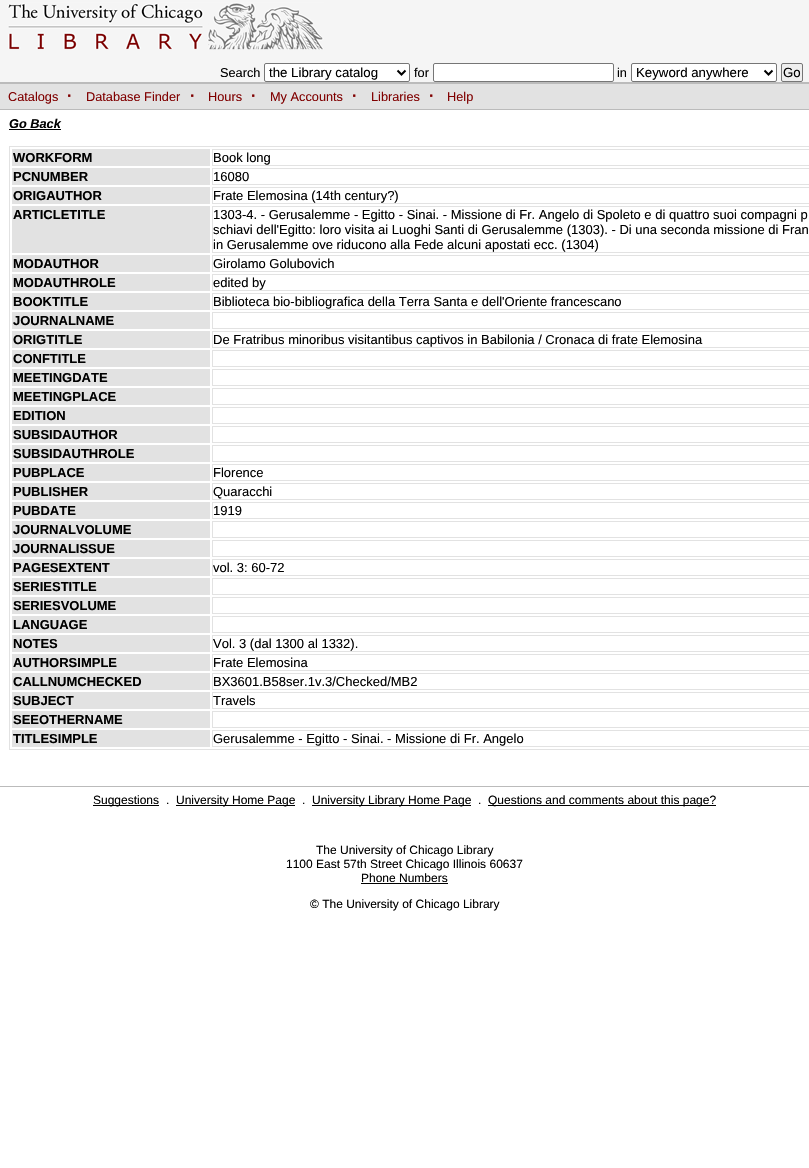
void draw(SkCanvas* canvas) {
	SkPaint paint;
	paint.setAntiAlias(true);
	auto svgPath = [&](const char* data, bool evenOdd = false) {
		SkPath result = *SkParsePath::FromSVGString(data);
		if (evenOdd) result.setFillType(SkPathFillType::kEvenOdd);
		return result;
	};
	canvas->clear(0xffffffff);
	paint.setColor(0xfff5f5f5);
	canvas->drawRect(SkRect::MakeXYWH(0, 0, 809, 82), paint);
	paint.setColor(0xffbbbbbb);
	canvas->drawRect(SkRect::MakeXYWH(0, 82, 809, 2), paint);
	canvas->drawImageRect(SkImages::DeferredFromEncodedData(SkData::MakeFromFileName("img1.png")), SkRect::MakeXYWH(7, 2, 317, 48), SkSamplingOptions());
	SkFont f1(fontMgr->matchFamilyStyle("Liberation Sans", SkFontStyle::Normal()), 12.75);
	f1.setSubpixel(true);
	paint.setColor(0xff000000);
	canvas->drawString("Search", 220, 77, f1, paint);
	paint.setColor(0xffffffff);
	canvas->drawRoundRect(SkRect::MakeXYWH(264.5, 63.5, 145, 18), 1.5, 1.5, paint);
	paint.setStroke(true);
	paint.setStrokeWidth(1);
	paint.setColor(0xff767676);
	canvas->drawRoundRect(SkRect::MakeXYWH(264.5, 63.5, 145, 18), 1.5, 1.5, paint);
	paint.setStrokeWidth(2);
	paint.setColor(0xff000000);
	canvas->drawPath(svgPath("M397.5 70.5L401.5 74.5L405.5 70.5"), paint);
	SkFont f2(fontMgr->matchFamilyStyle("Liberation Sans", SkFontStyle::Normal()), 13.25);
	f2.setSubpixel(true);
	paint.setStroke(false);
	canvas->drawString("the Library catalog", 269, 77, f2, paint);
	canvas->drawString("for", 414, 77, f1, paint);
	paint.setColor(0xffffffff);
	canvas->drawRoundRect(SkRect::MakeXYWH(433.5, 63.5, 180, 18), 1.5, 1.5, paint);
	paint.setStroke(true);
	paint.setStrokeWidth(1);
	paint.setColor(0xff767676);
	canvas->drawRoundRect(SkRect::MakeXYWH(433.5, 63.5, 180, 18), 1.5, 1.5, paint);
	paint.setStroke(false);
	paint.setColor(0xff000000);
	canvas->drawString("in", 617, 77, f1, paint);
	paint.setColor(0xffffffff);
	canvas->drawRoundRect(SkRect::MakeXYWH(631.5, 63.5, 145, 18), 1.5, 1.5, paint);
	paint.setStroke(true);
	paint.setColor(0xff767676);
	canvas->drawRoundRect(SkRect::MakeXYWH(631.5, 63.5, 145, 18), 1.5, 1.5, paint);
	paint.setStrokeWidth(2);
	paint.setColor(0xff000000);
	canvas->drawPath(svgPath("M764.5 70.5L768.5 74.5L772.5 70.5"), paint);
	paint.setStroke(false);
	canvas->drawString("Keyword anywhere", 636, 77, f2, paint);
	paint.setColor(0xffefefef);
	canvas->drawRoundRect(SkRect::MakeXYWH(781.5, 63.5, 21, 18), 1.5, 1.5, paint);
	paint.setStroke(true);
	paint.setStrokeWidth(1);
	paint.setColor(0xff767676);
	canvas->drawRoundRect(SkRect::MakeXYWH(781.5, 63.5, 21, 18), 1.5, 1.5, paint);
	paint.setStroke(false);
	paint.setColor(0xff000000);
	canvas->drawString("Go", 783, 77, f2, paint);
	paint.setColor(0xffe2e2e2);
	canvas->drawRect(SkRect::MakeXYWH(0, 84, 809, 25), paint);
	paint.setColor(0xffbbbbbb);
	canvas->drawRect(SkRect::MakeXYWH(0, 109, 809, 1), paint);
	paint.setColor(0xff800000);
	canvas->drawString("Catalogs", 8, 101, f1, paint);
	SkFont f3(fontMgr->matchFamilyStyle("Liberation Sans", SkFontStyle::Bold()), 16);
	f3.setSubpixel(true);
	canvas->drawString("·", 67, 101, f3, paint);
	canvas->drawString("Database Finder", 86, 101, f1, paint);
	canvas->drawString("·", 190, 101, f3, paint);
	canvas->drawString("Hours", 208, 101, f1, paint);
	canvas->drawString("·", 251, 101, f3, paint);
	canvas->drawString("My Accounts", 270, 101, f1, paint);
	canvas->drawString("·", 352, 101, f3, paint);
	canvas->drawString("Libraries", 371, 101, f1, paint);
	canvas->drawString("·", 429, 101, f3, paint);
	canvas->drawString("Help", 447, 101, f1, paint);
	SkFont f4(fontMgr->matchFamilyStyle("Liberation Sans", SkFontStyle::BoldItalic()), 12.75);
	f4.setSubpixel(true);
	paint.setColor(0xff000000);
	canvas->drawString("Go Back", 9, 128, f4, paint);
	canvas->drawRect(SkRect::MakeXYWH(9, 129, 52, 1), paint);
	paint.setStroke(true);
	paint.setColor(0xffe2e2e2);
	canvas->drawRect(SkRect::MakeXYWH(9.5, 146.5, 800, 603), paint);
	paint.setStroke(false);
	canvas->drawRect(SkRect::MakeXYWH(12, 149, 198, 17), paint);
	SkFont f5(fontMgr->matchFamilyStyle("Liberation Sans", SkFontStyle::Bold()), 13);
	f5.setSubpixel(true);
	paint.setColor(0xff000000);
	canvas->drawString("WORKFORM", 13, 162, f5, paint);
	paint.setStroke(true);
	paint.setColor(0xffe2e2e2);
	canvas->drawRect(SkRect::MakeXYWH(212.5, 149.5, 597, 16), paint);
	SkFont f6(fontMgr->matchFamilyStyle("Liberation Sans", SkFontStyle::Normal()), 13);
	f6.setSubpixel(true);
	paint.setStroke(false);
	paint.setColor(0xff000000);
	canvas->drawString("Book long", 213, 162, f6, paint);
	paint.setColor(0xffe2e2e2);
	canvas->drawRect(SkRect::MakeXYWH(12, 168, 198, 17), paint);
	paint.setColor(0xff000000);
	canvas->drawString("PCNUMBER", 13, 181, f5, paint);
	paint.setStroke(true);
	paint.setColor(0xffe2e2e2);
	canvas->drawRect(SkRect::MakeXYWH(212.5, 168.5, 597, 16), paint);
	paint.setStroke(false);
	paint.setColor(0xff000000);
	canvas->drawString("16080", 213, 181, f6, paint);
	paint.setColor(0xffe2e2e2);
	canvas->drawRect(SkRect::MakeXYWH(12, 187, 198, 17), paint);
	paint.setColor(0xff000000);
	canvas->drawString("ORIGAUTHOR", 13, 200, f5, paint);
	paint.setStroke(true);
	paint.setColor(0xffe2e2e2);
	canvas->drawRect(SkRect::MakeXYWH(212.5, 187.5, 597, 16), paint);
	paint.setStroke(false);
	paint.setColor(0xff000000);
	canvas->drawString("Frate Elemosina (14th century?)", 213, 200, f6, paint);
	paint.setColor(0xffe2e2e2);
	canvas->drawRect(SkRect::MakeXYWH(12, 206, 198, 47), paint);
	paint.setColor(0xff000000);
	canvas->drawString("ARTICLETITLE", 13, 219, f5, paint);
	paint.setStroke(true);
	paint.setColor(0xffe2e2e2);
	canvas->drawRect(SkRect::MakeXYWH(212.5, 206.5, 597, 46), paint);
	paint.setStroke(false);
	paint.setColor(0xff000000);
	canvas->drawString("1303-4. - Gerusalemme - Egitto - Sinai. - Missione di Fr. Angelo di Spoleto e di quattro suoi compagni p", 213, 219, f6, paint);
	canvas->drawString("schiavi dell'Egitto: loro visita ai Luoghi Santi di Gerusalemme (1303). - Di una seconda missione di Fran", 213, 234, f6, paint);
	canvas->drawString("in Gerusalemme ove riducono alla Fede alcuni apostati ecc. (1304)", 213, 249, f6, paint);
	paint.setColor(0xffe2e2e2);
	canvas->drawRect(SkRect::MakeXYWH(12, 255, 198, 17), paint);
	paint.setColor(0xff000000);
	canvas->drawString("MODAUTHOR", 13, 268, f5, paint);
	paint.setStroke(true);
	paint.setColor(0xffe2e2e2);
	canvas->drawRect(SkRect::MakeXYWH(212.5, 255.5, 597, 16), paint);
	paint.setStroke(false);
	paint.setColor(0xff000000);
	canvas->drawString("Girolamo Golubovich", 213, 268, f6, paint);
	paint.setColor(0xffe2e2e2);
	canvas->drawRect(SkRect::MakeXYWH(12, 274, 198, 17), paint);
	paint.setColor(0xff000000);
	canvas->drawString("MODAUTHROLE", 13, 287, f5, paint);
	paint.setStroke(true);
	paint.setColor(0xffe2e2e2);
	canvas->drawRect(SkRect::MakeXYWH(212.5, 274.5, 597, 16), paint);
	paint.setStroke(false);
	paint.setColor(0xff000000);
	canvas->drawString("edited by", 213, 287, f6, paint);
	paint.setColor(0xffe2e2e2);
	canvas->drawRect(SkRect::MakeXYWH(12, 293, 198, 17), paint);
	paint.setColor(0xff000000);
	canvas->drawString("BOOKTITLE", 13, 306, f5, paint);
	paint.setStroke(true);
	paint.setColor(0xffe2e2e2);
	canvas->drawRect(SkRect::MakeXYWH(212.5, 293.5, 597, 16), paint);
	paint.setStroke(false);
	paint.setColor(0xff000000);
	canvas->drawString("Biblioteca bio-bibliografica della Terra Santa e dell'Oriente francescano", 213, 306, f6, paint);
	paint.setColor(0xffe2e2e2);
	canvas->drawRect(SkRect::MakeXYWH(12, 312, 198, 17), paint);
	paint.setColor(0xff000000);
	canvas->drawString("JOURNALNAME", 13, 325, f5, paint);
	paint.setStroke(true);
	paint.setColor(0xffe2e2e2);
	canvas->drawRect(SkRect::MakeXYWH(212.5, 312.5, 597, 16), paint);
	paint.setStroke(false);
	canvas->drawRect(SkRect::MakeXYWH(12, 331, 198, 17), paint);
	paint.setColor(0xff000000);
	canvas->drawString("ORIGTITLE", 13, 344, f5, paint);
	paint.setStroke(true);
	paint.setColor(0xffe2e2e2);
	canvas->drawRect(SkRect::MakeXYWH(212.5, 331.5, 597, 16), paint);
	paint.setStroke(false);
	paint.setColor(0xff000000);
	canvas->drawString("De Fratribus minoribus visitantibus captivos in Babilonia / Cronaca di frate Elemosina", 213, 344, f6, paint);
	paint.setColor(0xffe2e2e2);
	canvas->drawRect(SkRect::MakeXYWH(12, 350, 198, 17), paint);
	paint.setColor(0xff000000);
	canvas->drawString("CONFTITLE", 13, 363, f5, paint);
	paint.setStroke(true);
	paint.setColor(0xffe2e2e2);
	canvas->drawRect(SkRect::MakeXYWH(212.5, 350.5, 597, 16), paint);
	paint.setStroke(false);
	canvas->drawRect(SkRect::MakeXYWH(12, 369, 198, 17), paint);
	paint.setColor(0xff000000);
	canvas->drawString("MEETINGDATE", 13, 382, f5, paint);
	paint.setStroke(true);
	paint.setColor(0xffe2e2e2);
	canvas->drawRect(SkRect::MakeXYWH(212.5, 369.5, 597, 16), paint);
	paint.setStroke(false);
	canvas->drawRect(SkRect::MakeXYWH(12, 388, 198, 17), paint);
	paint.setColor(0xff000000);
	canvas->drawString("MEETINGPLACE", 13, 401, f5, paint);
	paint.setStroke(true);
	paint.setColor(0xffe2e2e2);
	canvas->drawRect(SkRect::MakeXYWH(212.5, 388.5, 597, 16), paint);
	paint.setStroke(false);
	canvas->drawRect(SkRect::MakeXYWH(12, 407, 198, 17), paint);
	paint.setColor(0xff000000);
	canvas->drawString("EDITION", 13, 420, f5, paint);
	paint.setStroke(true);
	paint.setColor(0xffe2e2e2);
	canvas->drawRect(SkRect::MakeXYWH(212.5, 407.5, 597, 16), paint);
	paint.setStroke(false);
	canvas->drawRect(SkRect::MakeXYWH(12, 426, 198, 17), paint);
	paint.setColor(0xff000000);
	canvas->drawString("SUBSIDAUTHOR", 13, 439, f5, paint);
	paint.setStroke(true);
	paint.setColor(0xffe2e2e2);
	canvas->drawRect(SkRect::MakeXYWH(212.5, 426.5, 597, 16), paint);
	paint.setStroke(false);
	canvas->drawRect(SkRect::MakeXYWH(12, 445, 198, 17), paint);
	paint.setColor(0xff000000);
	canvas->drawString("SUBSIDAUTHROLE", 13, 458, f5, paint);
	paint.setStroke(true);
	paint.setColor(0xffe2e2e2);
	canvas->drawRect(SkRect::MakeXYWH(212.5, 445.5, 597, 16), paint);
	paint.setStroke(false);
	canvas->drawRect(SkRect::MakeXYWH(12, 464, 198, 17), paint);
	paint.setColor(0xff000000);
	canvas->drawString("PUBPLACE", 13, 477, f5, paint);
	paint.setStroke(true);
	paint.setColor(0xffe2e2e2);
	canvas->drawRect(SkRect::MakeXYWH(212.5, 464.5, 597, 16), paint);
	paint.setStroke(false);
	paint.setColor(0xff000000);
	canvas->drawString("Florence", 213, 477, f6, paint);
	paint.setColor(0xffe2e2e2);
	canvas->drawRect(SkRect::MakeXYWH(12, 483, 198, 17), paint);
	paint.setColor(0xff000000);
	canvas->drawString("PUBLISHER", 13, 496, f5, paint);
	paint.setStroke(true);
	paint.setColor(0xffe2e2e2);
	canvas->drawRect(SkRect::MakeXYWH(212.5, 483.5, 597, 16), paint);
	paint.setStroke(false);
	paint.setColor(0xff000000);
	canvas->drawString("Quaracchi", 213, 496, f6, paint);
	paint.setColor(0xffe2e2e2);
	canvas->drawRect(SkRect::MakeXYWH(12, 502, 198, 17), paint);
	paint.setColor(0xff000000);
	canvas->drawString("PUBDATE", 13, 515, f5, paint);
	paint.setStroke(true);
	paint.setColor(0xffe2e2e2);
	canvas->drawRect(SkRect::MakeXYWH(212.5, 502.5, 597, 16), paint);
	paint.setStroke(false);
	paint.setColor(0xff000000);
	canvas->drawString("1919", 213, 515, f6, paint);
	paint.setColor(0xffe2e2e2);
	canvas->drawRect(SkRect::MakeXYWH(12, 521, 198, 17), paint);
	paint.setColor(0xff000000);
	canvas->drawString("JOURNALVOLUME", 13, 534, f5, paint);
	paint.setStroke(true);
	paint.setColor(0xffe2e2e2);
	canvas->drawRect(SkRect::MakeXYWH(212.5, 521.5, 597, 16), paint);
	paint.setStroke(false);
	canvas->drawRect(SkRect::MakeXYWH(12, 540, 198, 17), paint);
	paint.setColor(0xff000000);
	canvas->drawString("JOURNALISSUE", 13, 553, f5, paint);
	paint.setStroke(true);
	paint.setColor(0xffe2e2e2);
	canvas->drawRect(SkRect::MakeXYWH(212.5, 540.5, 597, 16), paint);
	paint.setStroke(false);
	canvas->drawRect(SkRect::MakeXYWH(12, 559, 198, 17), paint);
	paint.setColor(0xff000000);
	canvas->drawString("PAGESEXTENT", 13, 572, f5, paint);
	paint.setStroke(true);
	paint.setColor(0xffe2e2e2);
	canvas->drawRect(SkRect::MakeXYWH(212.5, 559.5, 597, 16), paint);
	paint.setStroke(false);
	paint.setColor(0xff000000);
	canvas->drawString("vol. 3: 60-72", 213, 572, f6, paint);
	paint.setColor(0xffe2e2e2);
	canvas->drawRect(SkRect::MakeXYWH(12, 578, 198, 17), paint);
	paint.setColor(0xff000000);
	canvas->drawString("SERIESTITLE", 13, 591, f5, paint);
	paint.setStroke(true);
	paint.setColor(0xffe2e2e2);
	canvas->drawRect(SkRect::MakeXYWH(212.5, 578.5, 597, 16), paint);
	paint.setStroke(false);
	canvas->drawRect(SkRect::MakeXYWH(12, 597, 198, 17), paint);
	paint.setColor(0xff000000);
	canvas->drawString("SERIESVOLUME", 13, 610, f5, paint);
	paint.setStroke(true);
	paint.setColor(0xffe2e2e2);
	canvas->drawRect(SkRect::MakeXYWH(212.5, 597.5, 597, 16), paint);
	paint.setStroke(false);
	canvas->drawRect(SkRect::MakeXYWH(12, 616, 198, 17), paint);
	paint.setColor(0xff000000);
	canvas->drawString("LANGUAGE", 13, 629, f5, paint);
	paint.setStroke(true);
	paint.setColor(0xffe2e2e2);
	canvas->drawRect(SkRect::MakeXYWH(212.5, 616.5, 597, 16), paint);
	paint.setStroke(false);
	canvas->drawRect(SkRect::MakeXYWH(12, 635, 198, 17), paint);
	paint.setColor(0xff000000);
	canvas->drawString("NOTES", 13, 648, f5, paint);
	paint.setStroke(true);
	paint.setColor(0xffe2e2e2);
	canvas->drawRect(SkRect::MakeXYWH(212.5, 635.5, 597, 16), paint);
	paint.setStroke(false);
	paint.setColor(0xff000000);
	canvas->drawString("Vol. 3 (dal 1300 al 1332).", 213, 648, f6, paint);
	paint.setColor(0xffe2e2e2);
	canvas->drawRect(SkRect::MakeXYWH(12, 654, 198, 17), paint);
	paint.setColor(0xff000000);
	canvas->drawString("AUTHORSIMPLE", 13, 667, f5, paint);
	paint.setStroke(true);
	paint.setColor(0xffe2e2e2);
	canvas->drawRect(SkRect::MakeXYWH(212.5, 654.5, 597, 16), paint);
	paint.setStroke(false);
	paint.setColor(0xff000000);
	canvas->drawString("Frate Elemosina", 213, 667, f6, paint);
	paint.setColor(0xffe2e2e2);
	canvas->drawRect(SkRect::MakeXYWH(12, 673, 198, 17), paint);
	paint.setColor(0xff000000);
	canvas->drawString("CALLNUMCHECKED", 13, 686, f5, paint);
	paint.setStroke(true);
	paint.setColor(0xffe2e2e2);
	canvas->drawRect(SkRect::MakeXYWH(212.5, 673.5, 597, 16), paint);
	paint.setStroke(false);
	paint.setColor(0xff000000);
	canvas->drawString("BX3601.B58ser.1v.3/Checked/MB2", 213, 686, f6, paint);
	paint.setColor(0xffe2e2e2);
	canvas->drawRect(SkRect::MakeXYWH(12, 692, 198, 17), paint);
	paint.setColor(0xff000000);
	canvas->drawString("SUBJECT", 13, 705, f5, paint);
	paint.setStroke(true);
	paint.setColor(0xffe2e2e2);
	canvas->drawRect(SkRect::MakeXYWH(212.5, 692.5, 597, 16), paint);
	paint.setStroke(false);
	paint.setColor(0xff000000);
	canvas->drawString("Travels", 213, 705, f6, paint);
	paint.setColor(0xffe2e2e2);
	canvas->drawRect(SkRect::MakeXYWH(12, 711, 198, 17), paint);
	paint.setColor(0xff000000);
	canvas->drawString("SEEOTHERNAME", 13, 724, f5, paint);
	paint.setStroke(true);
	paint.setColor(0xffe2e2e2);
	canvas->drawRect(SkRect::MakeXYWH(212.5, 711.5, 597, 16), paint);
	paint.setStroke(false);
	canvas->drawRect(SkRect::MakeXYWH(12, 730, 198, 17), paint);
	paint.setColor(0xff000000);
	canvas->drawString("TITLESIMPLE", 13, 743, f5, paint);
	paint.setStroke(true);
	paint.setColor(0xffe2e2e2);
	canvas->drawRect(SkRect::MakeXYWH(212.5, 730.5, 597, 16), paint);
	paint.setStroke(false);
	paint.setColor(0xff000000);
	canvas->drawString("Gerusalemme - Egitto - Sinai. - Missione di Fr. Angelo", 213, 743, f6, paint);
	paint.setColor(0xffbbbbbb);
	canvas->drawRect(SkRect::MakeXYWH(0, 786, 809, 1), paint);
	paint.setColor(0xff000000);
	canvas->drawRect(SkRect::MakeXYWH(93, 805, 66, 1), paint);
	SkFont f7(fontMgr->matchFamilyStyle("Liberation Sans", SkFontStyle::Normal()), 12);
	f7.setSubpixel(true);
	canvas->drawString("Suggestions", 93, 804, f7, paint);
	canvas->drawString(".", 166, 804, f7, paint);
	canvas->drawRect(SkRect::MakeXYWH(176, 805, 119, 1), paint);
	canvas->drawString("University Home Page", 176, 804, f7, paint);
	canvas->drawString(".", 302, 804, f7, paint);
	canvas->drawRect(SkRect::MakeXYWH(312, 805, 159, 1), paint);
	canvas->drawString("University Library Home Page", 312, 804, f7, paint);
	canvas->drawString(".", 478, 804, f7, paint);
	canvas->drawRect(SkRect::MakeXYWH(488, 805, 228, 1), paint);
	canvas->drawString("Questions and comments about this page?", 488, 804, f7, paint);
	canvas->drawString("The University of Chicago Library", 316, 854, f7, paint);
	canvas->drawString("1100 East 57th Street Chicago Illinois 60637", 286, 868, f7, paint);
	canvas->drawString("Phone Numbers", 361, 882, f7, paint);
	canvas->drawRect(SkRect::MakeXYWH(361, 883, 87, 1), paint);
	canvas->drawString("© The University of Chicago Library", 310, 908, f7, paint);
}
